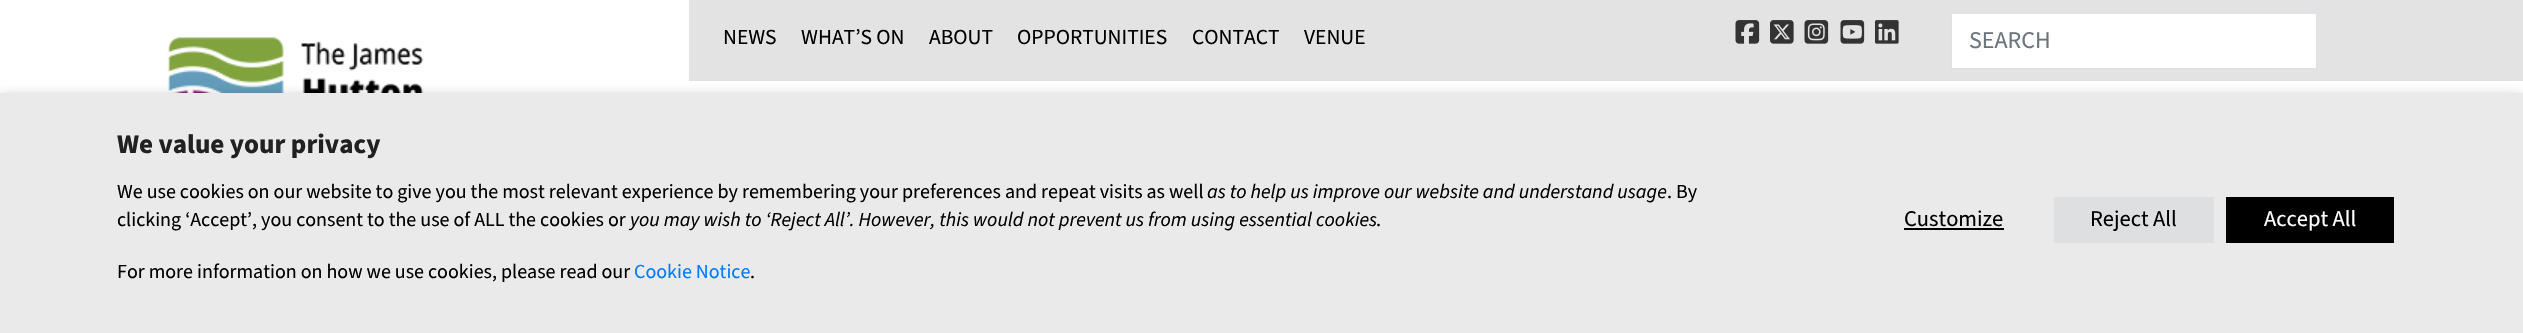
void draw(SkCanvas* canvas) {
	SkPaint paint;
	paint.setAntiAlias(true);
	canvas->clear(0xffffffff);
	canvas->drawImageRect(SkImages::DeferredFromEncodedData(SkData::MakeFromFileName("img1.png")), SkRect::MakeXYWH(167, 37, 257, 56), SkSamplingOptions());
	paint.setColor(0xffe3e3e3);
	canvas->drawRect(SkRect::MakeXYWH(689, 0, 1834, 81), paint);
	SkFont f1(fontMgr->matchFamilyStyle("Source Sans Pro", SkFontStyle::Normal()), 21.5);
	f1.setSubpixel(true);
	paint.setColor(0xff000000);
	canvas->drawString("NEWS", 723, 44, f1, paint);
	canvas->drawString("WHAT’S ON", 801, 44, f1, paint);
	canvas->drawString("ABOUT", 929, 44, f1, paint);
	canvas->drawString("OPPORTUNITIES", 1017, 44, f1, paint);
	canvas->drawString("CONTACT", 1192, 44, f1, paint);
	canvas->drawString("VENUE", 1304, 44, f1, paint);
	canvas->drawImageRect(SkImages::DeferredFromEncodedData(SkData::MakeFromFileName("img2.png")), SkRect::MakeXYWH(1735, 20, 25, 24), SkSamplingOptions());
	canvas->drawImageRect(SkImages::DeferredFromEncodedData(SkData::MakeFromFileName("img3.png")), SkRect::MakeXYWH(1770, 20, 24, 24), SkSamplingOptions());
	canvas->drawImageRect(SkImages::DeferredFromEncodedData(SkData::MakeFromFileName("img4.png")), SkRect::MakeXYWH(1804, 20, 25, 24), SkSamplingOptions());
	canvas->drawImageRect(SkImages::DeferredFromEncodedData(SkData::MakeFromFileName("img5.png")), SkRect::MakeXYWH(1840, 20, 25, 24), SkSamplingOptions());
	canvas->drawImageRect(SkImages::DeferredFromEncodedData(SkData::MakeFromFileName("img6.png")), SkRect::MakeXYWH(1875, 20, 24, 24), SkSamplingOptions());
	paint.setColor(0xffffffff);
	canvas->drawRect(SkRect::MakeXYWH(1952, 14, 364, 54), paint);
	paint.setColor(0xffdee2e6);
	canvas->drawRect(SkRect::MakeXYWH(1950, 12, 368, 2), paint);
	canvas->drawRect(SkRect::MakeXYWH(1950, 68, 320, 2), paint);
	canvas->drawRect(SkRect::MakeXYWH(1950, 12, 2, 57), paint);
	SkFont f2(fontMgr->matchFamilyStyle("Source Sans Pro", SkFontStyle::Normal()), 24);
	f2.setSubpixel(true);
	paint.setColor(0xff6c757d);
	canvas->drawString("SEARCH", 1969, 48, f2, paint);
	paint.setColor(0xffdee2e6);
	canvas->drawRect(SkRect::MakeXYWH(2316, 12, 2, 57), paint);
	canvas->drawRect(SkRect::MakeXYWH(2268, 68, 50, 2), paint);
	paint.setColor(0x80000000);
	paint.setMaskFilter(SkMaskFilter::MakeBlur(kNormal_SkBlurStyle, 7.5));
	canvas->drawRect(SkRect::MakeXYWH(0, 101, 2523, 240), paint);
	paint.setMaskFilter(nullptr);
	paint.setColor(0xffeaeaea);
	canvas->drawRect(SkRect::MakeXYWH(0, 93, 2523, 240), paint);
	SkFont f3(fontMgr->matchFamilyStyle("Source Sans Pro", SkFontStyle::Bold()), 27);
	f3.setSubpixel(true);
	paint.setColor(0xff212121);
	canvas->drawString("We value your privacy", 117, 153, f3, paint);
	SkFont f4(fontMgr->matchFamilyStyle("Source Sans Pro", SkFontStyle::Normal()), 20);
	f4.setSubpixel(true);
	paint.setColor(0xff000000);
	canvas->drawString("We use cookies on our website to give you the most relevant experience by remembering your preferences and repeat visits as well", 117, 198, f4, paint);
	SkFont f5(fontMgr->matchFamilyStyle("Source Sans Pro", SkFontStyle::Italic()), 20);
	f5.setSubpixel(true);
	canvas->drawString("as to help us improve our website and understand usage", 1207, 198, f5, paint);
	canvas->drawString(". By", 1667, 198, f4, paint);
	canvas->drawString("clicking ‘Accept’, you consent to the use of ALL the cookies or", 117, 226, f4, paint);
	canvas->drawString("you may wish to ‘Reject All’. However, this would not prevent us from using essential cookies", 630, 226, f5, paint);
	canvas->drawString(".", 1376, 226, f4, paint);
	canvas->drawString("For more information on how we use cookies, please read our", 117, 278, f4, paint);
	paint.setColor(0xff007bff);
	canvas->drawString("Cookie Notice", 634, 278, f4, paint);
	paint.setColor(0xff000000);
	canvas->drawString(".", 750, 278, f4, paint);
	SkFont f6(fontMgr->matchFamilyStyle("Source Sans Pro", SkFontStyle::Normal()), 22.5);
	f6.setSubpixel(true);
	canvas->drawString("Customize", 1904, 226, f6, paint);
	canvas->drawRect(SkRect::MakeXYWH(1904, 228, 100, 2), paint);
	paint.setColor(0xffdedfe0);
	canvas->drawRect(SkRect::MakeXYWH(2054, 197, 160, 46), paint);
	paint.setColor(0xff000000);
	canvas->drawString("Reject All", 2090, 226, f6, paint);
	canvas->drawRect(SkRect::MakeXYWH(2226, 197, 168, 46), paint);
	paint.setColor(0xffffffff);
	canvas->drawString("Accept All", 2264, 226, f6, paint);
}
